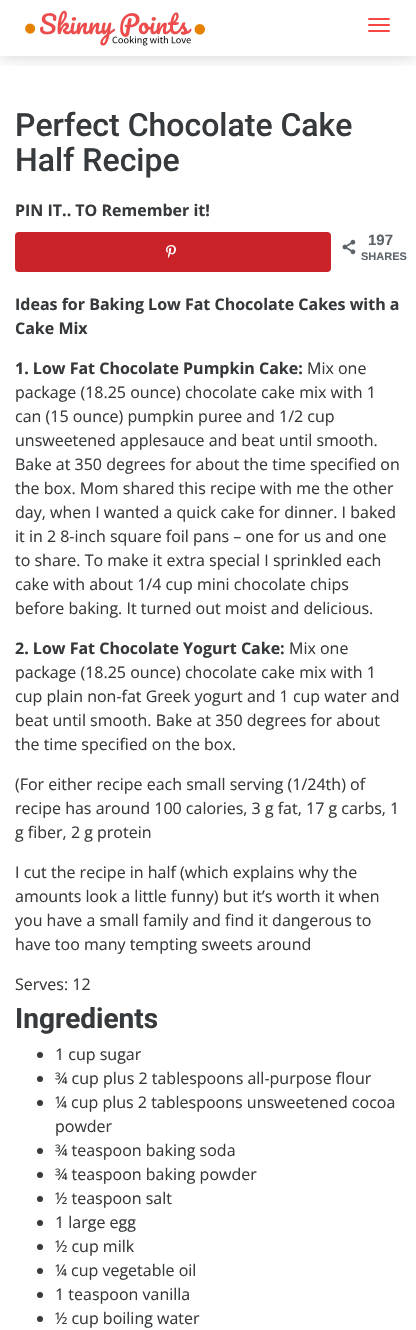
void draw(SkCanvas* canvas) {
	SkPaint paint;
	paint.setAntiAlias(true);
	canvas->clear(0xffffffff);
	canvas->save();
	canvas->clipRect(SkRect::MakeXYWH(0, 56, 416, 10));
	paint.setColor(0x2e000000);
	paint.setMaskFilter(SkMaskFilter::MakeBlur(kNormal_SkBlurStyle, 8));
	canvas->drawRect(SkRect::MakeXYWH(0, 0, 416, 56), paint);
	paint.setMaskFilter(nullptr);
	canvas->restore();
	canvas->drawImageRect(SkImages::DeferredFromEncodedData(SkData::MakeFromFileName("img1.png")), SkRect::MakeXYWH(25, 10, 180, 36), SkSamplingOptions());
	paint.setColor(0xfff64744);
	canvas->drawRoundRect(SkRect::MakeXYWH(368, 18, 22, 2), 1, 1, paint);
	canvas->drawRoundRect(SkRect::MakeXYWH(368, 24, 22, 2), 1, 1, paint);
	canvas->drawRoundRect(SkRect::MakeXYWH(368, 30, 22, 2), 1, 1, paint);
	SkFont f1(fontMgr->matchFamilyStyle("Roboto", SkFontStyle(500, SkFontStyle::kNormal_Width, SkFontStyle::kUpright_Slant)), 32);
	f1.setSubpixel(true);
	paint.setColor(0xff373a3c);
	canvas->drawString("Perfect Chocolate Cake", 15, 136, f1, paint);
	canvas->drawString("Half Recipe", 15, 171, f1, paint);
	SkFont f2(fontMgr->matchFamilyStyle("Open Sans", SkFontStyle::Bold()), 16);
	f2.setSubpixel(true);
	canvas->drawString("PIN IT.. TO Remember it!", 15, 216, f2, paint);
	paint.setColor(0xffc92228);
	canvas->drawRoundRect(SkRect::MakeXYWH(16, 233, 314, 38), 3, 3, paint);
	paint.setStroke(true);
	paint.setStrokeWidth(2);
	canvas->drawRoundRect(SkRect::MakeXYWH(16, 233, 314, 38), 3, 3, paint);
	canvas->drawImageRect(SkImages::DeferredFromEncodedData(SkData::MakeFromFileName("img2.png")), SkRect::MakeXYWH(166, 245, 10, 13), SkSamplingOptions());
	canvas->drawImageRect(SkImages::DeferredFromEncodedData(SkData::MakeFromFileName("img3.png")), SkRect::MakeXYWH(342, 239, 14, 16), SkSamplingOptions());
	SkFont f3(fontMgr->matchFamilyStyle("Liberation Sans", SkFontStyle::Bold()), 15);
	f3.setSubpixel(true);
	paint.setStroke(false);
	paint.setColor(0xff5d6368);
	canvas->drawString("197", 368, 245, f3, paint);
	SkFont f4(fontMgr->matchFamilyStyle("Liberation Sans", SkFontStyle::Bold()), 11);
	f4.setSubpixel(true);
	canvas->drawString("SHARES", 361, 260, f4, paint);
	paint.setColor(0xff373a3c);
	canvas->drawString("Ideas for Baking Low Fat Chocolate Cakes with a", 15, 310, f2, paint);
	canvas->drawString("Cake Mix", 15, 334, f2, paint);
	canvas->drawString("1. Low Fat Chocolate Pumpkin Cake:", 15, 374, f2, paint);
	SkFont f5(fontMgr->matchFamilyStyle("Open Sans", SkFontStyle::Normal()), 16);
	f5.setSubpixel(true);
	canvas->drawString("Mix one", 307, 374, f5, paint);
	canvas->drawString("package (18.25 ounce) chocolate cake mix with 1", 15, 398, f5, paint);
	canvas->drawString("can (15 ounce) pumpkin puree and 1/2 cup", 15, 422, f5, paint);
	canvas->drawString("unsweetened applesauce and beat until smooth.", 15, 446, f5, paint);
	canvas->drawString("Bake at 350 degrees for about the time specified on", 15, 470, f5, paint);
	canvas->drawString("the box. Mom shared this recipe with me the other", 15, 494, f5, paint);
	canvas->drawString("day, when I wanted a quick cake for dinner. I baked", 15, 518, f5, paint);
	canvas->drawString("it in 2 8-inch square foil pans – one for us and one", 15, 542, f5, paint);
	canvas->drawString("to share. To make it extra special I sprinkled each", 15, 566, f5, paint);
	canvas->drawString("cake with about 1/4 cup mini chocolate chips", 15, 590, f5, paint);
	canvas->drawString("before baking. It turned out moist and delicious.", 15, 614, f5, paint);
	canvas->drawString("2. Low Fat Chocolate Yogurt Cake:", 15, 654, f2, paint);
	canvas->drawString("Mix one", 289, 654, f5, paint);
	canvas->drawString("package (18.25 ounce) chocolate cake mix with 1", 15, 678, f5, paint);
	canvas->drawString("cup plain non-fat Greek yogurt and 1 cup water and", 15, 702, f5, paint);
	canvas->drawString("beat until smooth. Bake at 350 degrees for about", 15, 726, f5, paint);
	canvas->drawString("the time specified on the box.", 15, 750, f5, paint);
	canvas->drawString("(For either recipe each small serving (1/24th) of", 15, 790, f5, paint);
	canvas->drawString("recipe has around 100 calories, 3 g fat, 17 g carbs, 1", 15, 814, f5, paint);
	canvas->drawString("g fiber, 2 g protein", 15, 838, f5, paint);
	canvas->drawString("I cut the recipe in half (which explains why the", 15, 878, f5, paint);
	canvas->drawString("amounts look a little funny) but it’s worth it when", 15, 902, f5, paint);
	canvas->drawString("you have a small family and find it dangerous to", 15, 926, f5, paint);
	canvas->drawString("have too many tempting sweets around", 15, 950, f5, paint);
	canvas->drawString("Serves: 12", 15, 990, f5, paint);
	SkFont f6(fontMgr->matchFamilyStyle("Roboto", SkFontStyle::Bold()), 28);
	f6.setSubpixel(true);
	canvas->drawString("Ingredients", 15, 1028, f6, paint);
	canvas->drawCircle(40, 1055, 3, paint);
	canvas->drawString("1 cup sugar", 55, 1060, f5, paint);
	canvas->drawCircle(40, 1079, 3, paint);
	canvas->drawString("¾ cup plus 2 tablespoons all-purpose flour", 55, 1084, f5, paint);
	canvas->drawCircle(40, 1103, 3, paint);
	canvas->drawString("¼ cup plus 2 tablespoons unsweetened cocoa", 55, 1108, f5, paint);
	canvas->drawString("powder", 55, 1132, f5, paint);
	canvas->drawCircle(40, 1151, 3, paint);
	canvas->drawString("¾ teaspoon baking soda", 55, 1156, f5, paint);
	canvas->drawCircle(40, 1175, 3, paint);
	canvas->drawString("¾ teaspoon baking powder", 55, 1180, f5, paint);
	canvas->drawCircle(40, 1199, 3, paint);
	canvas->drawString("½ teaspoon salt", 55, 1204, f5, paint);
	canvas->drawCircle(40, 1223, 3, paint);
	canvas->drawString("1 large egg", 55, 1228, f5, paint);
	canvas->drawCircle(40, 1247, 3, paint);
	canvas->drawString("½ cup milk", 55, 1252, f5, paint);
	canvas->drawCircle(40, 1271, 3, paint);
	canvas->drawString("¼ cup vegetable oil", 55, 1276, f5, paint);
	canvas->drawCircle(40, 1295, 3, paint);
	canvas->drawString("1 teaspoon vanilla", 55, 1300, f5, paint);
	canvas->drawCircle(40, 1319, 3, paint);
	canvas->drawString("½ cup boiling water", 55, 1324, f5, paint);
}
